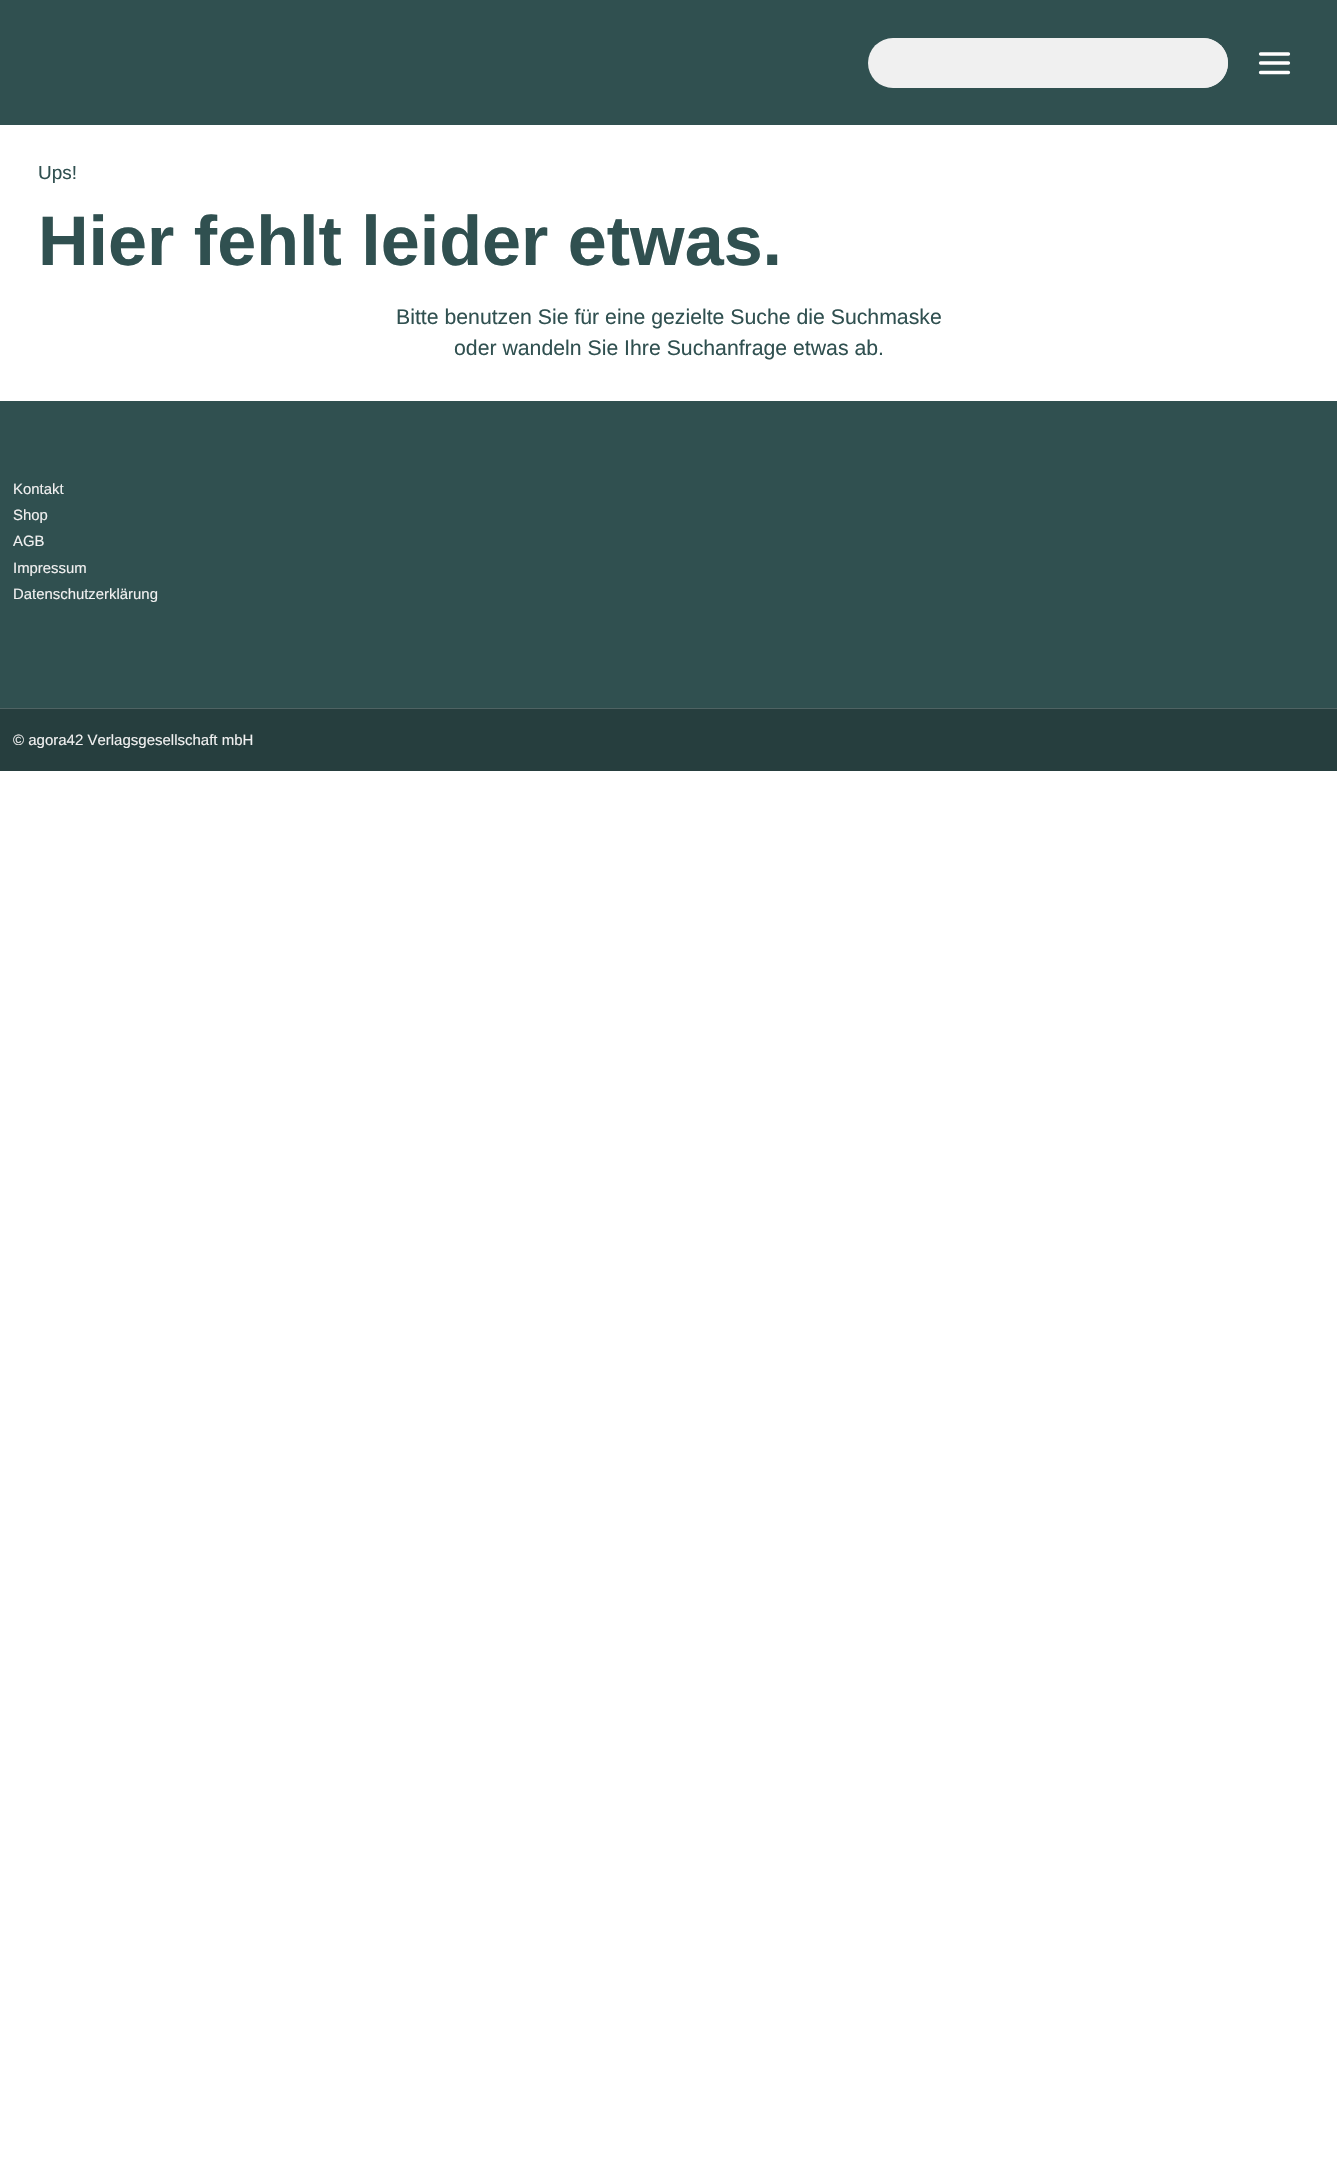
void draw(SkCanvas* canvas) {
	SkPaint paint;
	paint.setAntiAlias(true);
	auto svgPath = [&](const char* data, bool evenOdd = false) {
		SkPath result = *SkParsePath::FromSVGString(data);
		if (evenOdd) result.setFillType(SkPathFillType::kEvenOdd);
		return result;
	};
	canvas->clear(0xffffffff);
	paint.setColor(0xff305050);
	canvas->drawRect(SkRect::MakeXYWH(0, 0, 1337, 125), paint);
	paint.setColor(0xfff0f0f0);
	canvas->drawRoundRect(SkRect::MakeXYWH(868, 38, 360, 50), 25, 25, paint);
	canvas->drawPath(svgPath("M1178 38H1203C1217 38 1228 49 1228 63C1228 77 1217 88 1203 88H1178Z"), paint);
	paint.setStroke(true);
	paint.setStrokeWidth(3.3);
	paint.setStrokeCap(SkPaint::kRound_Cap);
	paint.setColor(0xffffffff);
	canvas->drawPath(svgPath("M1260.5 54H1288.5M1260.5 63H1288.5M1260.5 72.5H1288.5"), paint);
	SkFont f1(fontMgr->matchFamilyStyle("Liberation Sans", SkFontStyle::Normal()), 19);
	f1.setSubpixel(true);
	paint.setStroke(false);
	paint.setColor(0xff305050);
	canvas->drawString("Ups!", 38, 179, f1, paint);
	SkFont f2(fontMgr->matchFamilyStyle("Liberation Sans", SkFontStyle::Bold()), 70.1);
	f2.setSubpixel(true);
	canvas->drawString("Hier fehlt leider etwas.", 38, 265, f2, paint);
	SkFont f3(fontMgr->matchFamilyStyle("Liberation Sans", SkFontStyle::Normal()), 21.25);
	f3.setSubpixel(true);
	canvas->drawString("Bitte benutzen Sie für eine gezielte Suche die Suchmaske", 396, 324, f3, paint);
	canvas->drawString("oder wandeln Sie Ihre Suchanfrage etwas ab.", 454, 355, f3, paint);
	canvas->drawRect(SkRect::MakeXYWH(0, 401, 1337, 307), paint);
	SkFont f4(fontMgr->matchFamilyStyle("Liberation Sans", SkFontStyle::Normal()), 14.9);
	f4.setSubpixel(true);
	paint.setColor(0xfff0f0f0);
	canvas->drawString("Kontakt", 13, 494, f4, paint);
	canvas->drawString("Shop", 13, 520, f4, paint);
	canvas->drawString("AGB", 13, 546, f4, paint);
	canvas->drawString("Impressum", 13, 573, f4, paint);
	canvas->drawString("Datenschutzerklärung", 13, 599, f4, paint);
	paint.setColor(0xff263e3e);
	canvas->drawRect(SkRect::MakeXYWH(0, 709, 1337, 62), paint);
	paint.setColor(0xff4f6363);
	canvas->drawRect(SkRect::MakeXYWH(0, 708, 1337, 1), paint);
	SkFont f5(fontMgr->matchFamilyStyle("Liberation Sans", SkFontStyle::Normal()), 15);
	f5.setSubpixel(true);
	paint.setColor(0xfff0f0f0);
	canvas->drawString("© agora42 Verlagsgesellschaft mbH", 13, 745, f5, paint);
}
